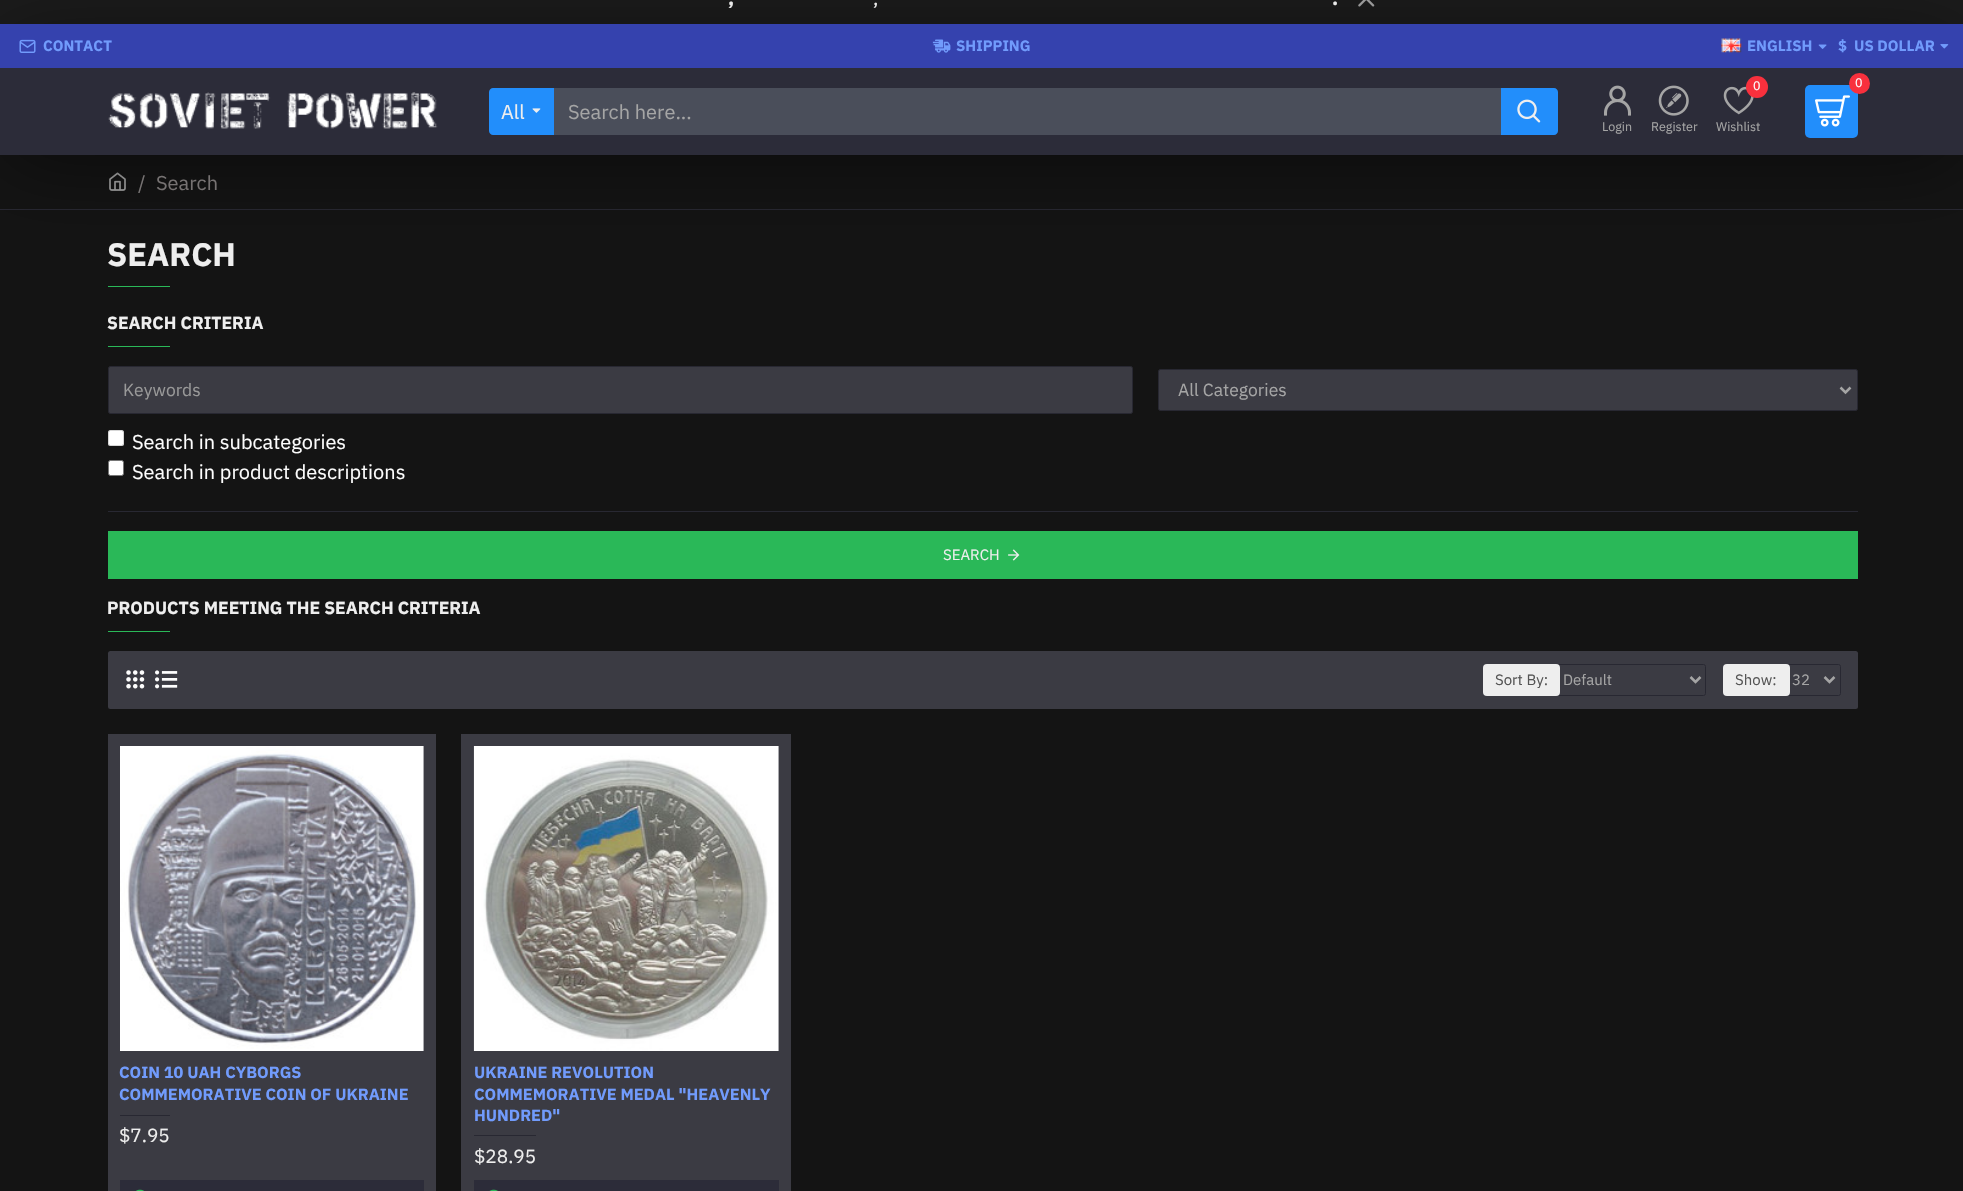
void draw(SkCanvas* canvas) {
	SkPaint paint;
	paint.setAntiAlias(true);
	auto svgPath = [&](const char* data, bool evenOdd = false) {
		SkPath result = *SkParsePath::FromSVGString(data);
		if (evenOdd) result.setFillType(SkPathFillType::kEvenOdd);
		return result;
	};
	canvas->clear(0xff141414);
	paint.setColor(0xff1b1b1b);
	canvas->drawRect(SkRect::MakeXYWH(0, 0, 1963, 24), paint);
	SkFont f1(fontMgr->matchFamilyStyle("IBM Plex Sans", SkFontStyle::Bold()), 20);
	f1.setSubpixel(true);
	paint.setColor(0xfffdfdfd);
	canvas->drawString(",", 728, 5, f1, paint);
	SkFont f2(fontMgr->matchFamilyStyle("IBM Plex Sans", SkFontStyle::Normal()), 20);
	f2.setSubpixel(true);
	canvas->drawString(",", 873, 5, f2, paint);
	canvas->drawString(".", 1332, 5, f1, paint);
	canvas->drawImageRect(SkImages::DeferredFromEncodedData(SkData::MakeFromFileName("img1.png")), SkRect::MakeXYWH(1358, 0, 17, 7), SkSamplingOptions());
	canvas->drawImageRect(SkImages::DeferredFromEncodedData(SkData::MakeFromFileName("img14.png")), SkRect::MakeXYWH(109, 172, 17, 19), SkSamplingOptions());
	paint.setColor(0xff282832);
	canvas->drawRect(SkRect::MakeXYWH(0, 209, 1963, 1), paint);
	paint.setColor(0x80000000);
	paint.setMaskFilter(SkMaskFilter::MakeBlur(kNormal_SkBlurStyle, 40.5));
	canvas->drawRect(SkRect::MakeXYWH(6, 43, 1952, 118), paint);
	paint.setMaskFilter(nullptr);
	paint.setColor(0xff2c2c39);
	canvas->drawRect(SkRect::MakeXYWH(0, 68, 1963, 87), paint);
	paint.setColor(0xff3542ae);
	canvas->drawRect(SkRect::MakeXYWH(0, 24, 1963, 44), paint);
	canvas->drawImageRect(SkImages::DeferredFromEncodedData(SkData::MakeFromFileName("img2.png")), SkRect::MakeXYWH(19, 39, 17, 14), SkSamplingOptions());
	SkFont f3(fontMgr->matchFamilyStyle("IBM Plex Sans", SkFontStyle::Bold()), 15);
	f3.setSubpixel(true);
	paint.setColor(0xff719bfc);
	canvas->drawString("CONTACT", 43, 51, f3, paint);
	canvas->drawImageRect(SkImages::DeferredFromEncodedData(SkData::MakeFromFileName("img3.png")), SkRect::MakeXYWH(932, 39, 19, 14), SkSamplingOptions());
	canvas->drawString("SHIPPING", 956, 51, f3, paint);
	canvas->drawImageRect(SkImages::DeferredFromEncodedData(SkData::MakeFromFileName("img4.png")), SkRect::MakeXYWH(1721, 38, 21, 15), SkSamplingOptions());
	canvas->drawString("ENGLISH", 1747, 51, f3, paint);
	canvas->drawImageRect(SkImages::DeferredFromEncodedData(SkData::MakeFromFileName("img5.png")), SkRect::MakeXYWH(1818, 44, 9, 5), SkSamplingOptions());
	canvas->drawString("$", 1838, 51, f3, paint);
	canvas->drawString("US DOLLAR", 1854, 51, f3, paint);
	canvas->drawImageRect(SkImages::DeferredFromEncodedData(SkData::MakeFromFileName("img6.png")), SkRect::MakeXYWH(1940, 44, 9, 5), SkSamplingOptions());
	canvas->drawImageRect(SkImages::DeferredFromEncodedData(SkData::MakeFromFileName("img7.png")), SkRect::MakeXYWH(108, 92, 330, 37), SkSamplingOptions());
	paint.setColor(0xff228efb);
	canvas->drawPath(svgPath("M493 88H554V135H493C491 135 489 133 489 131V92C489 90 491 88 493 88Z"), paint);
	paint.setColor(0xffeeeeee);
	canvas->drawString("All", 501, 119, f2, paint);
	canvas->drawImageRect(SkImages::DeferredFromEncodedData(SkData::MakeFromFileName("img8.png")), SkRect::MakeXYWH(532, 108, 9, 5), SkSamplingOptions());
	paint.setColor(0xff4a4e5a);
	canvas->drawRect(SkRect::MakeXYWH(554, 88, 947, 47), paint);
	paint.setColor(0xffa5a5a5);
	canvas->drawString("Search here...", 568, 119, f2, paint);
	paint.setColor(0xff228efb);
	canvas->drawPath(svgPath("M1501 88H1554C1556 88 1558 90 1558 92V131C1558 133 1556 135 1554 135H1501Z"), paint);
	canvas->drawImageRect(SkImages::DeferredFromEncodedData(SkData::MakeFromFileName("img9.png")), SkRect::MakeXYWH(1517, 99, 24, 24), SkSamplingOptions());
	canvas->drawImageRect(SkImages::DeferredFromEncodedData(SkData::MakeFromFileName("img10.png")), SkRect::MakeXYWH(1604, 85, 27, 31), SkSamplingOptions());
	SkFont f4(fontMgr->matchFamilyStyle("IBM Plex Sans", SkFontStyle::Normal()), 12.5);
	f4.setSubpixel(true);
	paint.setColor(0xffa5a5a5);
	canvas->drawString("Login", 1602, 131, f4, paint);
	canvas->drawImageRect(SkImages::DeferredFromEncodedData(SkData::MakeFromFileName("img11.png")), SkRect::MakeXYWH(1658, 85, 31, 31), SkSamplingOptions());
	canvas->drawString("Register", 1651, 131, f4, paint);
	canvas->drawImageRect(SkImages::DeferredFromEncodedData(SkData::MakeFromFileName("img12.png")), SkRect::MakeXYWH(1723, 86, 31, 29), SkSamplingOptions());
	paint.setColor(0xfff8303d);
	canvas->drawCircle(1757, 87, 11, paint);
	paint.setColor(0xfffdfdfd);
	canvas->drawString("0", 1753, 90, f4, paint);
	paint.setColor(0xffa5a5a5);
	canvas->drawString("Wishlist", 1716, 131, f4, paint);
	paint.setColor(0xff228efb);
	canvas->drawRoundRect(SkRect::MakeXYWH(1805, 85, 53, 53), 5, 5, paint);
	paint.setColor(0xfff8303d);
	canvas->drawCircle(1859.5, 83.5, 10.5, paint);
	paint.setColor(0xfffdfdfd);
	canvas->drawString("0", 1855, 87, f4, paint);
	canvas->drawImageRect(SkImages::DeferredFromEncodedData(SkData::MakeFromFileName("img13.png")), SkRect::MakeXYWH(1815, 95, 35, 32), SkSamplingOptions());
	paint.setColor(0xff767272);
	canvas->drawString("/", 138, 190, f2, paint);
	canvas->drawString("Search", 156, 190, f2, paint);
	SkFont f5(fontMgr->matchFamilyStyle("IBM Plex Sans", SkFontStyle::Bold()), 32.5);
	f5.setSubpixel(true);
	paint.setColor(0xffeeeeee);
	canvas->drawString("SEARCH", 107, 266, f5, paint);
	paint.setColor(0xff2ab858);
	canvas->drawRect(SkRect::MakeXYWH(108, 286, 62, 1), paint);
	SkFont f6(fontMgr->matchFamilyStyle("IBM Plex Sans", SkFontStyle::Bold()), 17.5);
	f6.setSubpixel(true);
	paint.setColor(0xffeeeeee);
	canvas->drawString("SEARCH CRITERIA", 107, 329, f6, paint);
	paint.setColor(0xff2ab858);
	canvas->drawRect(SkRect::MakeXYWH(108, 346, 62, 1), paint);
	paint.setColor(0xff3b3b43);
	canvas->drawRoundRect(SkRect::MakeXYWH(108.5, 366.5, 1024, 47), 2, 2, paint);
	paint.setStroke(true);
	paint.setStrokeWidth(1);
	paint.setColor(0xff282832);
	canvas->drawRoundRect(SkRect::MakeXYWH(108.5, 366.5, 1024, 47), 2, 2, paint);
	SkFont f7(fontMgr->matchFamilyStyle("IBM Plex Sans", SkFontStyle::Normal()), 17.5);
	f7.setSubpixel(true);
	paint.setStroke(false);
	paint.setColor(0xff999999);
	canvas->drawString("Keywords", 123, 396, f7, paint);
	paint.setColor(0xff3b3b43);
	canvas->drawRoundRect(SkRect::MakeXYWH(1158.5, 369.5, 699, 41), 2, 2, paint);
	paint.setStroke(true);
	paint.setColor(0xff282832);
	canvas->drawRoundRect(SkRect::MakeXYWH(1158.5, 369.5, 699, 41), 2, 2, paint);
	paint.setStrokeWidth(2.5);
	paint.setColor(0xffa5a5a5);
	canvas->drawPath(svgPath("M1840.5 387.5L1845.5 392.5L1850.5 387.5"), paint);
	paint.setStroke(false);
	canvas->drawString("All Categories", 1178, 396, f7, paint);
	paint.setColor(0xffffffff);
	canvas->drawRoundRect(SkRect::MakeXYWH(108, 430, 16, 16), 2.5, 2.5, paint);
	paint.setStroke(true);
	paint.setStrokeWidth(1);
	paint.setColor(0x4d767676);
	canvas->drawRoundRect(SkRect::MakeXYWH(108.5, 430.5, 15, 15), 2, 2, paint);
	paint.setStroke(false);
	paint.setColor(0xfffdfdfd);
	canvas->drawString("Search in subcategories", 132, 449, f2, paint);
	paint.setColor(0xffffffff);
	canvas->drawRoundRect(SkRect::MakeXYWH(108.5, 460.5, 15, 15), 2, 2, paint);
	paint.setStroke(true);
	paint.setColor(0xff767676);
	canvas->drawRoundRect(SkRect::MakeXYWH(108.5, 460.5, 15, 15), 2, 2, paint);
	paint.setStroke(false);
	paint.setColor(0xfffdfdfd);
	canvas->drawString("Search in product descriptions", 132, 479, f2, paint);
	paint.setColor(0xff282832);
	canvas->drawRect(SkRect::MakeXYWH(108, 511, 1750, 1), paint);
	paint.setColor(0xff2ab858);
	canvas->drawRect(SkRect::MakeXYWH(108, 531, 1750, 48), paint);
	SkFont f8(fontMgr->matchFamilyStyle("IBM Plex Sans", SkFontStyle::Normal()), 15);
	f8.setSubpixel(true);
	paint.setColor(0xffeeeeee);
	canvas->drawString("SEARCH", 943, 560, f8, paint);
	canvas->drawImageRect(SkImages::DeferredFromEncodedData(SkData::MakeFromFileName("img15.png")), SkRect::MakeXYWH(1008, 549, 12, 12), SkSamplingOptions());
	canvas->drawString("PRODUCTS MEETING THE SEARCH CRITERIA", 107, 614, f6, paint);
	paint.setColor(0xff2ab858);
	canvas->drawRect(SkRect::MakeXYWH(108, 631, 62, 1), paint);
	paint.setColor(0xff3b3b43);
	canvas->drawRoundRect(SkRect::MakeXYWH(108, 651, 1750, 58), 2.5, 2.5, paint);
	canvas->drawImageRect(SkImages::DeferredFromEncodedData(SkData::MakeFromFileName("img16.png")), SkRect::MakeXYWH(126, 670, 19, 19), SkSamplingOptions());
	canvas->drawImageRect(SkImages::DeferredFromEncodedData(SkData::MakeFromFileName("img17.png")), SkRect::MakeXYWH(155, 670, 23, 19), SkSamplingOptions());
	paint.setStroke(true);
	paint.setColor(0xff282832);
	canvas->drawRoundRect(SkRect::MakeXYWH(1556.5, 664.5, 149, 31), 2, 2, paint);
	paint.setStroke(false);
	paint.setColor(0xffeeeeee);
	canvas->drawRoundRect(SkRect::MakeXYWH(1483, 664, 77, 32), 4, 4, paint);
	paint.setColor(0xff555555);
	canvas->drawString("Sort By:", 1495, 685, f8, paint);
	paint.setStroke(true);
	paint.setStrokeWidth(2.5);
	paint.setColor(0xffa5a5a5);
	canvas->drawPath(svgPath("M1690.5 677L1695.5 682L1700.5 677"), paint);
	paint.setStroke(false);
	canvas->drawString("Default", 1563, 685, f8, paint);
	paint.setStroke(true);
	paint.setStrokeWidth(1);
	paint.setColor(0xff282832);
	canvas->drawRoundRect(SkRect::MakeXYWH(1786.5, 664.5, 54, 31), 2, 2, paint);
	paint.setStroke(false);
	paint.setColor(0xffeeeeee);
	canvas->drawRoundRect(SkRect::MakeXYWH(1723, 664, 67, 32), 4, 4, paint);
	paint.setColor(0xff555555);
	canvas->drawString("Show:", 1735, 685, f8, paint);
	paint.setStroke(true);
	paint.setStrokeWidth(2.5);
	paint.setColor(0xffa5a5a5);
	canvas->drawPath(svgPath("M1824.5 677L1829.5 682L1834.5 677"), paint);
	paint.setStroke(false);
	canvas->drawString("32", 1792, 685, f8, paint);
	paint.setColor(0xff3b3b43);
	canvas->drawRect(SkRect::MakeXYWH(108, 734, 328, 457), paint);
	canvas->drawImageRect(SkImages::DeferredFromEncodedData(SkData::MakeFromFileName("img18.png")), SkRect::MakeXYWH(120, 746, 304, 305), SkSamplingOptions());
	SkFont f9(fontMgr->matchFamilyStyle("IBM Plex Sans", SkFontStyle::Bold()), 16.25);
	f9.setSubpixel(true);
	paint.setColor(0xff719bfc);
	canvas->drawString("COIN 10 UAH CYBORGS", 119, 1078, f9, paint);
	canvas->drawString("COMMEMORATIVE COIN OF UKRAINE", 119, 1100, f9, paint);
	paint.setColor(0xff282832);
	canvas->drawRect(SkRect::MakeXYWH(120, 1115, 50, 1), paint);
	SkFont f10(fontMgr->matchFamilyStyle("IBM Plex Sans", SkFontStyle::Normal()), 19);
	f10.setSubpixel(true);
	paint.setColor(0xffeeeeee);
	canvas->drawString("$7.95", 119, 1142, f10, paint);
	paint.setColor(0xff2c2c39);
	canvas->drawRect(SkRect::MakeXYWH(120, 1180, 304, 11), paint);
	canvas->drawImageRect(SkImages::DeferredFromEncodedData(SkData::MakeFromFileName("img19.png")), SkRect::MakeXYWH(136, 1189, 8, 2), SkSamplingOptions());
	paint.setColor(0xff3b3b43);
	canvas->drawRect(SkRect::MakeXYWH(461, 734, 330, 457), paint);
	canvas->drawImageRect(SkImages::DeferredFromEncodedData(SkData::MakeFromFileName("img20.png")), SkRect::MakeXYWH(473, 746, 306, 305), SkSamplingOptions());
	paint.setColor(0xff719bfc);
	canvas->drawString("UKRAINE REVOLUTION", 474, 1078, f9, paint);
	canvas->drawString("COMMEMORATIVE MEDAL \"HEAVENLY", 474, 1100, f9, paint);
	canvas->drawString("HUNDRED\"", 474, 1121, f9, paint);
	paint.setColor(0xff282832);
	canvas->drawRect(SkRect::MakeXYWH(474, 1135, 62, 1), paint);
	paint.setColor(0xffeeeeee);
	canvas->drawString("$28.95", 474, 1163, f10, paint);
	paint.setColor(0xff2c2c39);
	canvas->drawRect(SkRect::MakeXYWH(474, 1180, 305, 11), paint);
	canvas->drawImageRect(SkImages::DeferredFromEncodedData(SkData::MakeFromFileName("img21.png")), SkRect::MakeXYWH(489, 1189, 9, 2), SkSamplingOptions());
}
